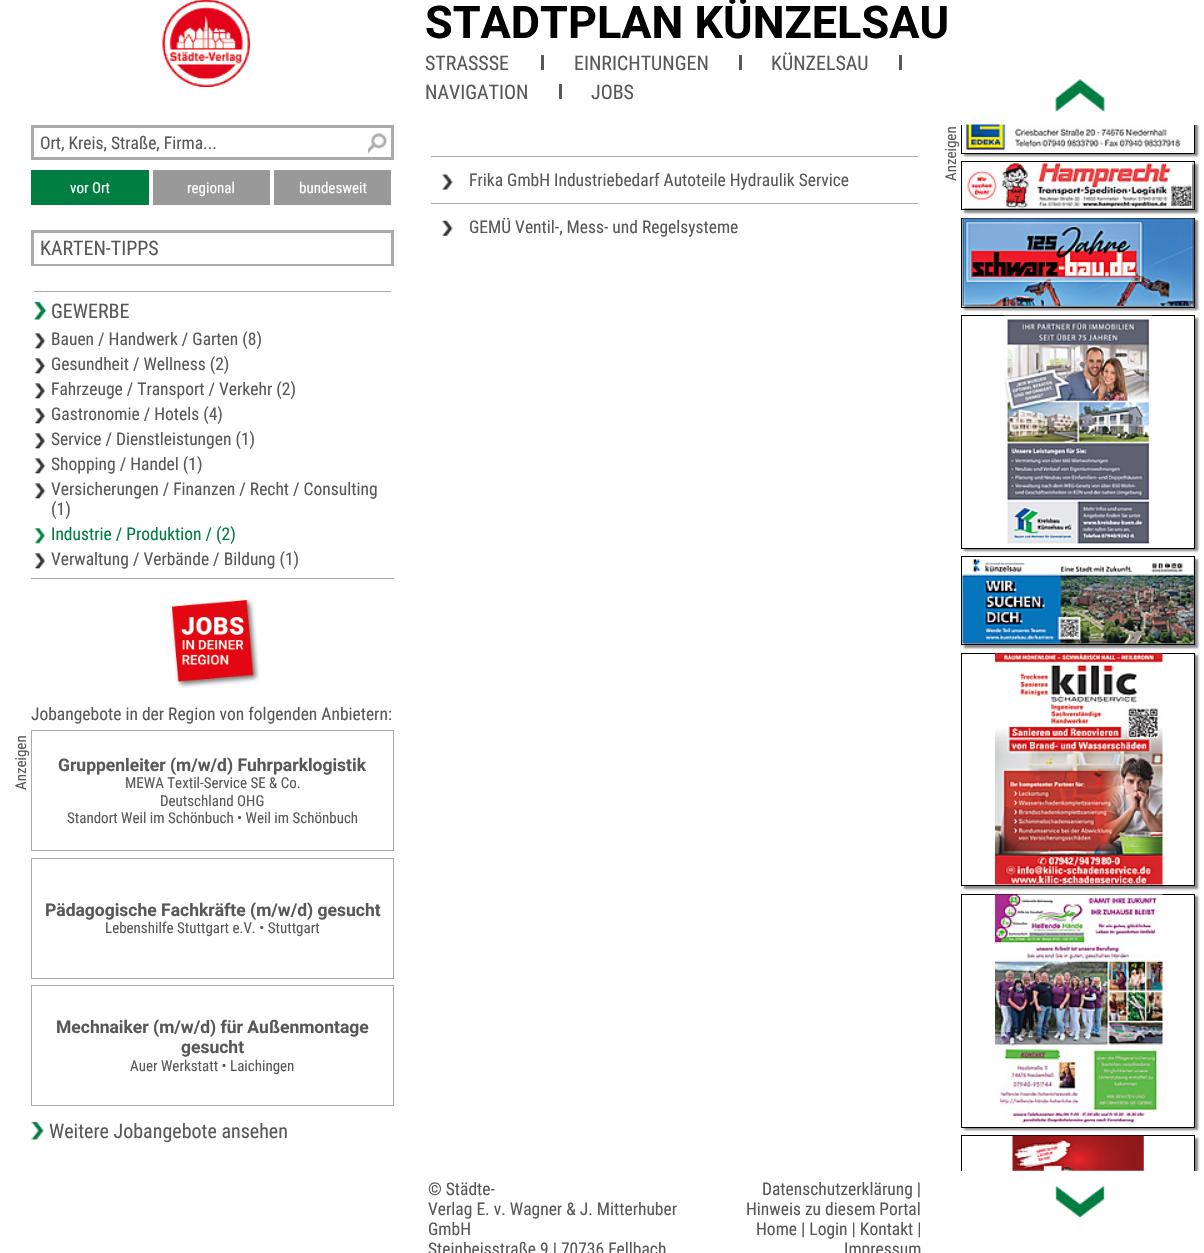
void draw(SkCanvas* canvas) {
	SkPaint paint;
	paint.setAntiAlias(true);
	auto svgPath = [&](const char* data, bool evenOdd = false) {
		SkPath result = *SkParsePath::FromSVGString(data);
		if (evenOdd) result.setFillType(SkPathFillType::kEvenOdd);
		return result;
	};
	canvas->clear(0xffffffff);
	canvas->drawImageRect(SkImages::DeferredFromEncodedData(SkData::MakeFromFileName("img1.png")), SkRect::MakeXYWH(162, 0, 88, 87), SkSamplingOptions());
	SkFont f1(fontMgr->matchFamilyStyle("Roboto", SkFontStyle::Bold()), 45);
	f1.setSubpixel(true);
	paint.setColor(0xff000000);
	canvas->drawString("STADTPLAN KÜNZELSAU", 425, 38, f1, paint);
	SkFont f2(fontMgr->matchFamilyStyle("Roboto Condensed", SkFontStyle::Normal()), 20);
	f2.setSubpixel(true);
	paint.setColor(0xff58585a);
	canvas->drawString("STRASSSE", 425, 70, f2, paint);
	canvas->drawRect(SkRect::MakeXYWH(541, 55, 3, 15), paint);
	canvas->drawString("EINRICHTUNGEN", 574, 70, f2, paint);
	canvas->drawRect(SkRect::MakeXYWH(739, 55, 3, 15), paint);
	canvas->drawString("KÜNZELSAU", 771, 70, f2, paint);
	canvas->drawRect(SkRect::MakeXYWH(899, 55, 3, 15), paint);
	canvas->drawString("NAVIGATION", 425, 99, f2, paint);
	canvas->drawRect(SkRect::MakeXYWH(559, 84, 3, 15), paint);
	canvas->drawString("JOBS", 591, 99, f2, paint);
	canvas->drawImageRect(SkImages::DeferredFromEncodedData(SkData::MakeFromFileName("img2.png")), SkRect::MakeXYWH(368, 133, 19, 21), SkSamplingOptions());
	paint.setStroke(true);
	paint.setStrokeWidth(3);
	paint.setColor(0xffaaaaaa);
	canvas->drawRect(SkRect::MakeXYWH(32.5, 126.5, 360, 32), paint);
	SkFont f3(fontMgr->matchFamilyStyle("Roboto Condensed", SkFontStyle::Normal()), 17.5);
	f3.setSubpixel(true);
	paint.setStroke(false);
	paint.setColor(0xff58585a);
	canvas->drawString("Ort, Kreis, Straße, Firma...", 40, 149, f3, paint);
	paint.setColor(0xff007d40);
	canvas->drawRect(SkRect::MakeXYWH(31, 170, 118, 35), paint);
	SkFont f4(fontMgr->matchFamilyStyle("Roboto Condensed", SkFontStyle::Normal()), 15);
	f4.setSubpixel(true);
	paint.setColor(0xffffffff);
	canvas->drawString("vor Ort", 70, 193, f4, paint);
	paint.setColor(0xff999999);
	canvas->drawRect(SkRect::MakeXYWH(153, 170, 117, 35), paint);
	paint.setColor(0xffffffff);
	canvas->drawString("regional", 187, 193, f4, paint);
	paint.setColor(0xff999999);
	canvas->drawRect(SkRect::MakeXYWH(274, 170, 117, 35), paint);
	paint.setColor(0xffffffff);
	canvas->drawString("bundesweit", 299, 193, f4, paint);
	paint.setStroke(true);
	paint.setColor(0xffaaaaaa);
	canvas->drawRect(SkRect::MakeXYWH(32.5, 231.5, 360, 33), paint);
	paint.setStroke(false);
	paint.setColor(0xffffffff);
	canvas->drawRect(SkRect::MakeXYWH(34, 263, 357, 1), paint);
	paint.setColor(0xff58585a);
	canvas->drawString("KARTEN-TIPPS", 40, 255, f2, paint);
	canvas->drawImageRect(SkImages::DeferredFromEncodedData(SkData::MakeFromFileName("img3.png")), SkRect::MakeXYWH(33, 301, 14, 19), SkSamplingOptions());
	paint.setColor(0xffaaaaaa);
	canvas->drawRect(SkRect::MakeXYWH(34, 291, 357, 1), paint);
	paint.setColor(0xff58585a);
	canvas->drawString("GEWERBE", 51, 318, f2, paint);
	canvas->drawImageRect(SkImages::DeferredFromEncodedData(SkData::MakeFromFileName("img4.png")), SkRect::MakeXYWH(34, 333, 12, 16), SkSamplingOptions());
	canvas->drawString("Bauen / Handwerk / Garten (8)", 51, 345, f3, paint);
	canvas->drawImageRect(SkImages::DeferredFromEncodedData(SkData::MakeFromFileName("img4.png")), SkRect::MakeXYWH(34, 358, 12, 16), SkSamplingOptions());
	canvas->drawString("Gesundheit / Wellness (2)", 51, 370, f3, paint);
	canvas->drawImageRect(SkImages::DeferredFromEncodedData(SkData::MakeFromFileName("img4.png")), SkRect::MakeXYWH(34, 383, 12, 16), SkSamplingOptions());
	canvas->drawString("Fahrzeuge / Transport / Verkehr (2)", 51, 395, f3, paint);
	canvas->drawImageRect(SkImages::DeferredFromEncodedData(SkData::MakeFromFileName("img4.png")), SkRect::MakeXYWH(34, 408, 12, 16), SkSamplingOptions());
	canvas->drawString("Gastronomie / Hotels (4)", 51, 420, f3, paint);
	canvas->drawImageRect(SkImages::DeferredFromEncodedData(SkData::MakeFromFileName("img4.png")), SkRect::MakeXYWH(34, 433, 12, 16), SkSamplingOptions());
	canvas->drawString("Service / Dienstleistungen (1)", 51, 445, f3, paint);
	canvas->drawImageRect(SkImages::DeferredFromEncodedData(SkData::MakeFromFileName("img4.png")), SkRect::MakeXYWH(34, 458, 12, 16), SkSamplingOptions());
	canvas->drawString("Shopping / Handel (1)", 51, 470, f3, paint);
	canvas->drawImageRect(SkImages::DeferredFromEncodedData(SkData::MakeFromFileName("img4.png")), SkRect::MakeXYWH(34, 483, 12, 16), SkSamplingOptions());
	canvas->drawString("Versicherungen / Finanzen / Recht / Consulting", 51, 495, f3, paint);
	canvas->drawString("(1)", 51, 515, f3, paint);
	canvas->drawImageRect(SkImages::DeferredFromEncodedData(SkData::MakeFromFileName("img5.png")), SkRect::MakeXYWH(34, 528, 12, 16), SkSamplingOptions());
	paint.setColor(0xff007d40);
	canvas->drawString("Industrie / Produktion / (2)", 51, 540, f3, paint);
	canvas->drawImageRect(SkImages::DeferredFromEncodedData(SkData::MakeFromFileName("img4.png")), SkRect::MakeXYWH(34, 553, 12, 16), SkSamplingOptions());
	paint.setColor(0xff58585a);
	canvas->drawString("Verwaltung / Verbände / Bildung (1)", 51, 565, f3, paint);
	canvas->drawString("Jobangebote in der Region von folgenden Anbietern:", 31, 720, f3, paint);
	canvas->drawImageRect(SkImages::DeferredFromEncodedData(SkData::MakeFromFileName("img6.png")), SkRect::MakeXYWH(170, 599, 90, 89), SkSamplingOptions());
	paint.setColor(0xffaaaaaa);
	canvas->drawRect(SkRect::MakeXYWH(31, 578, 363, 1), paint);
	paint.setColor(0xff58585a);
	canvas->save();
	canvas->rotate(-90, 26, 790);
	canvas->drawString("Anzeigen", 26, 790, f4, paint);
	canvas->restore();
	paint.setStroke(true);
	paint.setStrokeWidth(1);
	paint.setColor(0xffaaaaaa);
	canvas->drawRect(SkRect::MakeXYWH(31.5, 730.5, 362, 120), paint);
	SkFont f5(fontMgr->matchFamilyStyle("Roboto", SkFontStyle::Bold()), 17.5);
	f5.setSubpixel(true);
	paint.setStroke(false);
	paint.setColor(0xff58585a);
	canvas->drawString("Gruppenleiter (m/w/d) Fuhrparklogistik", 58, 771, f5, paint);
	canvas->drawString("MEWA Textil-Service SE & Co.", 125, 788, f4, paint);
	canvas->drawString("Deutschland OHG", 160, 806, f4, paint);
	canvas->drawString("Standort Weil im Schönbuch • Weil im Schönbuch", 67, 823, f4, paint);
	paint.setStroke(true);
	paint.setColor(0xffaaaaaa);
	canvas->drawRect(SkRect::MakeXYWH(31.5, 858.5, 362, 120), paint);
	paint.setStroke(false);
	paint.setColor(0xff58585a);
	canvas->drawString("Pädagogische Fachkräfte (m/w/d) gesucht", 45, 916, f5, paint);
	canvas->drawString("Lebenshilfe Stuttgart e.V. • Stuttgart", 105, 933, f4, paint);
	paint.setStroke(true);
	paint.setColor(0xffaaaaaa);
	canvas->drawRect(SkRect::MakeXYWH(31.5, 985.5, 362, 120), paint);
	paint.setStroke(false);
	paint.setColor(0xff58585a);
	canvas->drawString("Mechnaiker (m/w/d) für Außenmontage", 56, 1033, f5, paint);
	canvas->drawString("gesucht", 181, 1053, f5, paint);
	canvas->drawString("Auer Werkstatt • Laichingen", 130, 1071, f4, paint);
	canvas->drawImageRect(SkImages::DeferredFromEncodedData(SkData::MakeFromFileName("img7.png")), SkRect::MakeXYWH(31, 1121, 13, 19), SkSamplingOptions());
	canvas->drawString("Weitere Jobangebote ansehen", 49, 1138, f2, paint);
	canvas->drawImageRect(SkImages::DeferredFromEncodedData(SkData::MakeFromFileName("img8.png")), SkRect::MakeXYWH(442, 174, 11, 16), SkSamplingOptions());
	paint.setColor(0xffaaaaaa);
	canvas->drawRect(SkRect::MakeXYWH(431, 156, 487, 1), paint);
	paint.setColor(0xff58585a);
	canvas->drawString("Frika GmbH Industriebedarf Autoteile Hydraulik Service", 469, 186, f3, paint);
	canvas->drawImageRect(SkImages::DeferredFromEncodedData(SkData::MakeFromFileName("img9.png")), SkRect::MakeXYWH(442, 220, 11, 16), SkSamplingOptions());
	paint.setColor(0xffaaaaaa);
	canvas->drawRect(SkRect::MakeXYWH(431, 203, 487, 1), paint);
	paint.setColor(0xff58585a);
	canvas->drawString("GEMÜ Ventil-, Mess- und Regelsysteme", 469, 233, f3, paint);
	canvas->drawImageRect(SkImages::DeferredFromEncodedData(SkData::MakeFromFileName("img10.png")), SkRect::MakeXYWH(1054, 79, 52, 34), SkSamplingOptions());
	canvas->save();
	canvas->rotate(-90, 956, 181);
	canvas->drawString("Anzeigen", 956, 181, f4, paint);
	canvas->restore();
	canvas->save();
	canvas->clipRect(SkRect::MakeXYWH(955, 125, 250, 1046));
	canvas->clipPath(svgPath("M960 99H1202V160H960ZM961 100H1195V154H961Z", true), true);
	paint.setColor(0xff888888);
	paint.setMaskFilter(SkMaskFilter::MakeBlur(kNormal_SkBlurStyle, 1));
	canvas->drawRect(SkRect::MakeXYWH(964, 103, 234, 53), paint);
	paint.setMaskFilter(nullptr);
	canvas->restore();
	canvas->save();
	canvas->clipRect(SkRect::MakeXYWH(955, 125, 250, 1046));
	paint.setStroke(true);
	paint.setColor(0xff000000);
	canvas->drawRect(SkRect::MakeXYWH(961.5, 100.5, 233, 53), paint);
	canvas->restore();
	canvas->drawImageRect(SkImages::DeferredFromEncodedData(SkData::MakeFromFileName("img11.png")), SkRect::MakeXYWH(963, 124, 218, 27), SkSamplingOptions());
	paint.setStroke(false);
	paint.setColor(0xff888888);
	paint.setMaskFilter(SkMaskFilter::MakeBlur(kNormal_SkBlurStyle, 1));
	canvas->drawRect(SkRect::MakeXYWH(964, 164, 234, 49), paint);
	paint.setMaskFilter(nullptr);
	paint.setStroke(true);
	paint.setColor(0xff000000);
	canvas->drawRect(SkRect::MakeXYWH(961.5, 161.5, 233, 48), paint);
	canvas->drawImageRect(SkImages::DeferredFromEncodedData(SkData::MakeFromFileName("img12.png")), SkRect::MakeXYWH(963, 162, 229, 47), SkSamplingOptions());
	paint.setStroke(false);
	paint.setColor(0xff888888);
	paint.setMaskFilter(SkMaskFilter::MakeBlur(kNormal_SkBlurStyle, 1));
	canvas->drawRect(SkRect::MakeXYWH(964, 220, 234, 90), paint);
	paint.setMaskFilter(nullptr);
	paint.setStroke(true);
	paint.setColor(0xff000000);
	canvas->drawRect(SkRect::MakeXYWH(961.5, 218.5, 233, 89), paint);
	canvas->drawImageRect(SkImages::DeferredFromEncodedData(SkData::MakeFromFileName("img13.png")), SkRect::MakeXYWH(962, 218, 232, 88), SkSamplingOptions());
	canvas->save();
	canvas->clipPath(svgPath("M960 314H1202V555H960ZM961 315H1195V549H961Z", true), true);
	paint.setStroke(false);
	paint.setColor(0xff888888);
	paint.setMaskFilter(SkMaskFilter::MakeBlur(kNormal_SkBlurStyle, 1));
	canvas->drawRect(SkRect::MakeXYWH(964, 318, 234, 233), paint);
	paint.setMaskFilter(nullptr);
	canvas->restore();
	paint.setStroke(true);
	paint.setColor(0xff000000);
	canvas->drawRect(SkRect::MakeXYWH(961.5, 315.5, 233, 233), paint);
	canvas->drawImageRect(SkImages::DeferredFromEncodedData(SkData::MakeFromFileName("img14.png")), SkRect::MakeXYWH(1003, 315, 150, 231), SkSamplingOptions());
	paint.setStroke(false);
	paint.setColor(0xff888888);
	paint.setMaskFilter(SkMaskFilter::MakeBlur(kNormal_SkBlurStyle, 1));
	canvas->drawRect(SkRect::MakeXYWH(964, 559, 234, 89), paint);
	paint.setMaskFilter(nullptr);
	paint.setStroke(true);
	paint.setColor(0xff000000);
	canvas->drawRect(SkRect::MakeXYWH(961.5, 556.5, 233, 88), paint);
	canvas->drawImageRect(SkImages::DeferredFromEncodedData(SkData::MakeFromFileName("img15.png")), SkRect::MakeXYWH(962, 557, 232, 87), SkSamplingOptions());
	canvas->save();
	canvas->clipPath(svgPath("M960 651H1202V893H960ZM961 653H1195V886H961Z", true), true);
	paint.setStroke(false);
	paint.setColor(0xff888888);
	paint.setMaskFilter(SkMaskFilter::MakeBlur(kNormal_SkBlurStyle, 1));
	canvas->drawRect(SkRect::MakeXYWH(964, 655, 234, 234), paint);
	paint.setMaskFilter(nullptr);
	canvas->restore();
	paint.setStroke(true);
	paint.setColor(0xff000000);
	canvas->drawRect(SkRect::MakeXYWH(961.5, 653.5, 233, 232), paint);
	canvas->drawImageRect(SkImages::DeferredFromEncodedData(SkData::MakeFromFileName("img16.png")), SkRect::MakeXYWH(995, 653, 168, 232), SkSamplingOptions());
	canvas->save();
	canvas->clipPath(svgPath("M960 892H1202V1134H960ZM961 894H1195V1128H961Z", true), true);
	paint.setStroke(false);
	paint.setColor(0xff888888);
	paint.setMaskFilter(SkMaskFilter::MakeBlur(kNormal_SkBlurStyle, 1));
	canvas->drawRect(SkRect::MakeXYWH(964, 896, 234, 234), paint);
	paint.setMaskFilter(nullptr);
	canvas->restore();
	paint.setStroke(true);
	paint.setColor(0xff000000);
	canvas->drawRect(SkRect::MakeXYWH(961.5, 894.5, 233, 233), paint);
	canvas->drawImageRect(SkImages::DeferredFromEncodedData(SkData::MakeFromFileName("img17.png")), SkRect::MakeXYWH(995, 894, 168, 231), SkSamplingOptions());
	canvas->drawImageRect(SkImages::DeferredFromEncodedData(SkData::MakeFromFileName("img19.png")), SkRect::MakeXYWH(1055, 1185, 51, 33), SkSamplingOptions());
	canvas->save();
	canvas->clipRect(SkRect::MakeXYWH(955, 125, 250, 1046));
	canvas->clipRect(SkRect::MakeXYWH(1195, 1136, 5, 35));
	paint.setStroke(false);
	paint.setColor(0xff888888);
	paint.setMaskFilter(SkMaskFilter::MakeBlur(kNormal_SkBlurStyle, 1));
	canvas->drawRect(SkRect::MakeXYWH(964, 1138, 234, 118), paint);
	paint.setMaskFilter(nullptr);
	canvas->restore();
	canvas->save();
	canvas->clipRect(SkRect::MakeXYWH(955, 125, 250, 1046));
	paint.setStroke(true);
	paint.setColor(0xff000000);
	canvas->drawRect(SkRect::MakeXYWH(961.5, 1135.5, 233, 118), paint);
	canvas->restore();
	canvas->drawImageRect(SkImages::DeferredFromEncodedData(SkData::MakeFromFileName("img18.png")), SkRect::MakeXYWH(1012, 1135, 132, 36), SkSamplingOptions());
	paint.setStroke(false);
	paint.setColor(0xff58585a);
	canvas->drawString("© Städte-", 428, 1195, f3, paint);
	canvas->drawString("Verlag E. v. Wagner & J. Mitterhuber", 428, 1215, f3, paint);
	canvas->drawString("GmbH", 428, 1235, f3, paint);
	canvas->drawString("Steinbeisstraße 9 | 70736 Fellbach", 428, 1255, f3, paint);
	canvas->drawString("Datenschutzerklärung |", 762, 1195, f3, paint);
	canvas->drawString("Hinweis zu diesem Portal", 746, 1215, f3, paint);
	canvas->drawString("Home | Login | Kontakt |", 756, 1235, f3, paint);
	canvas->drawString("Impressum", 844, 1255, f3, paint);
}
